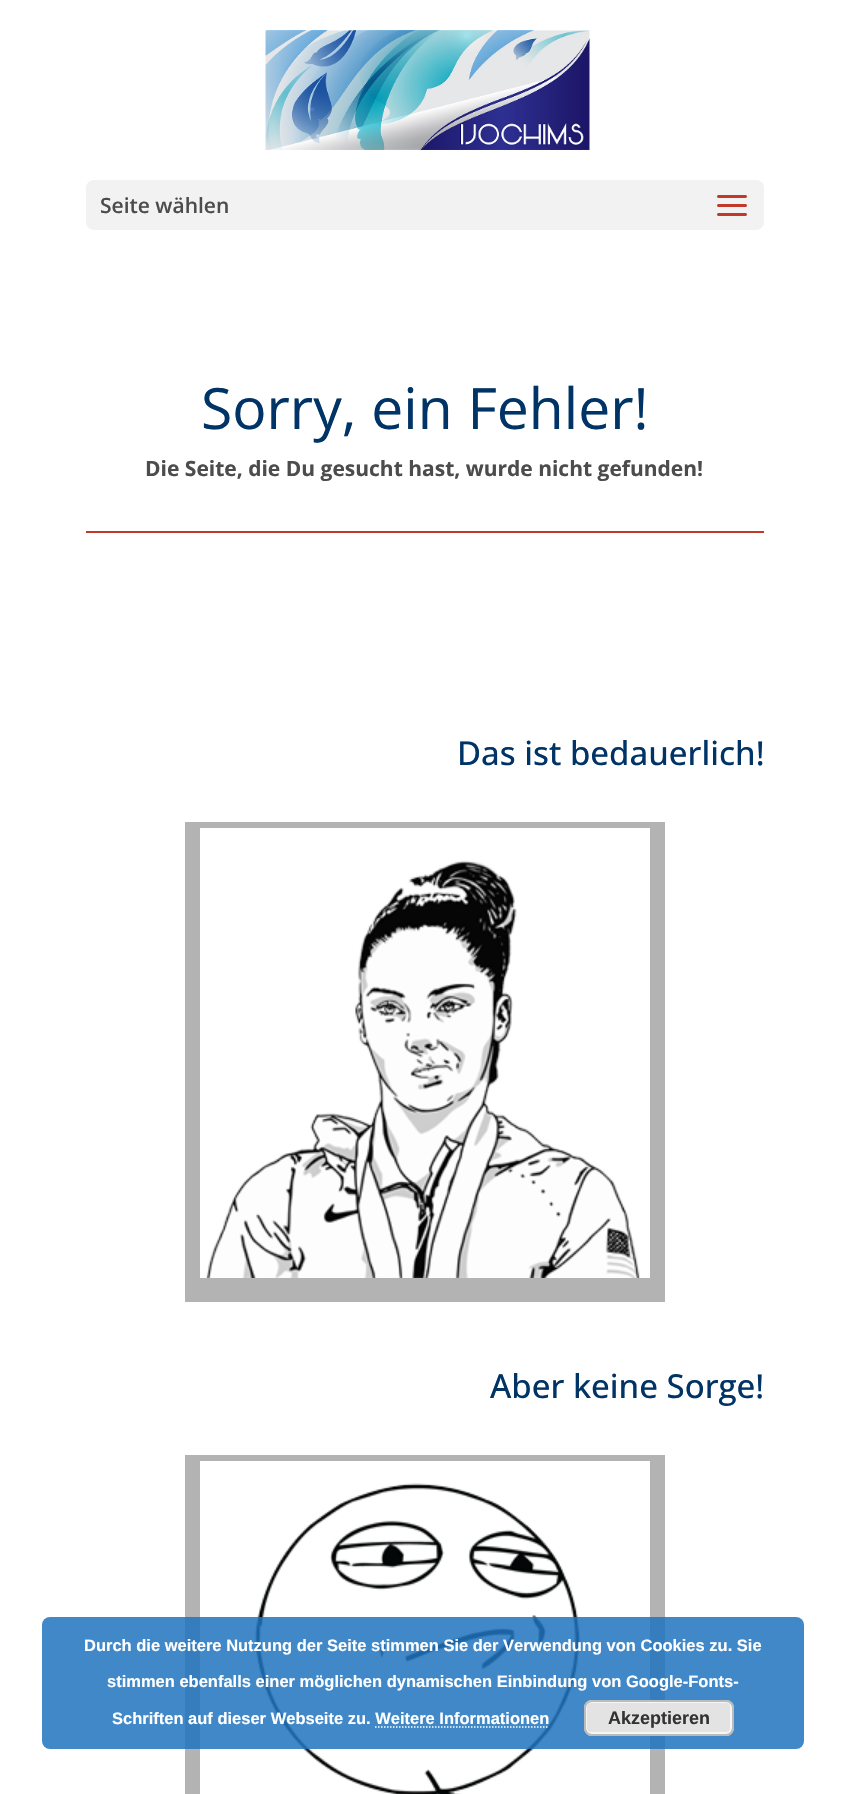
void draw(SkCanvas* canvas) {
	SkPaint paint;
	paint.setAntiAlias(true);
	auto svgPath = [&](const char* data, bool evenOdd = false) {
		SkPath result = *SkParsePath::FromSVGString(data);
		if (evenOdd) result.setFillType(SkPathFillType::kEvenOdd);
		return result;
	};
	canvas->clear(0xffffffff);
	canvas->drawImageRect(SkImages::DeferredFromEncodedData(SkData::MakeFromFileName("img1.png")), SkRect::MakeXYWH(265, 30, 325, 120), SkSamplingOptions());
	paint.setColor(0xfff2f2f2);
	canvas->drawRoundRect(SkRect::MakeXYWH(86, 180, 678, 50), 8, 8, paint);
	SkFont f1(fontMgr->matchFamilyStyle("Open Sans", SkFontStyle(600, SkFontStyle::kNormal_Width, SkFontStyle::kUpright_Slant)), 21);
	f1.setSubpixel(true);
	paint.setColor(0xff4c4c4c);
	canvas->drawString("Seite wählen", 100, 213, f1, paint);
	canvas->drawImageRect(SkImages::DeferredFromEncodedData(SkData::MakeFromFileName("img2.png")), SkRect::MakeXYWH(717, 195, 30, 21), SkSamplingOptions());
	SkFont f2(fontMgr->matchFamilyStyle("Open Sans", SkFontStyle::Normal()), 57);
	f2.setSubpixel(true);
	paint.setColor(0xff003366);
	canvas->drawString("Sorry, ein Fehler!", 201, 429, f2, paint);
	SkFont f3(fontMgr->matchFamilyStyle("Open Sans", SkFontStyle::Bold()), 21);
	f3.setSubpixel(true);
	paint.setColor(0xff4c4c4c);
	canvas->drawString("Die Seite, die Du gesucht hast, wurde nicht gefunden!", 145, 476, f3, paint);
	paint.setColor(0xffc0392b);
	canvas->drawRect(SkRect::MakeXYWH(86, 531, 678, 2), paint);
	SkFont f4(fontMgr->matchFamilyStyle("Open Sans", SkFontStyle(500, SkFontStyle::kNormal_Width, SkFontStyle::kUpright_Slant)), 33);
	f4.setSubpixel(true);
	paint.setColor(0xff003366);
	canvas->drawString("Das ist bedauerlich!", 457, 765, f4, paint);
	paint.setColor(0xffb3b3b3);
	canvas->drawPath(svgPath("M185 822V1302H665V822ZM200 828V1278H650V828Z", true), paint);
	canvas->drawImageRect(SkImages::DeferredFromEncodedData(SkData::MakeFromFileName("img3.png")), SkRect::MakeXYWH(206, 860, 434, 418), SkSamplingOptions());
	paint.setColor(0xff003366);
	canvas->drawString("Aber keine Sorge!", 490, 1398, f4, paint);
	paint.setColor(0xffb3b3b3);
	canvas->drawPath(svgPath("M185 1455V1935H665V1455ZM200 1461V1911H650V1461Z", true), paint);
	canvas->drawImageRect(SkImages::DeferredFromEncodedData(SkData::MakeFromFileName("img4.png")), SkRect::MakeXYWH(254, 1483, 327, 311), SkSamplingOptions());
	paint.setColor(0xd91e73be);
	canvas->drawRoundRect(SkRect::MakeXYWH(42, 1617, 762, 132), 8, 8, paint);
	SkFont f5(fontMgr->matchFamilyStyle("Liberation Sans", SkFontStyle::Bold()), 16.5);
	f5.setSubpixel(true);
	paint.setColor(0xffffffff);
	canvas->drawString("Durch die weitere Nutzung der Seite stimmen Sie der Verwendung von Cookies zu. Sie", 84, 1651, f5, paint);
	canvas->drawString("stimmen ebenfalls einer möglichen dynamischen Einbindung von Google-Fonts-", 107, 1687, f5, paint);
	canvas->drawString("Schriften auf dieser Webseite zu. Weitere Informationen", 112, 1724, f5, paint);
	paint.setColor(0xffe3e3e3);
	canvas->drawRoundRect(SkRect::MakeXYWH(584, 1700, 150, 36), 8, 8, paint);
	paint.setStroke(true);
	paint.setStrokeWidth(2);
	paint.setColor(0xfff6f6f6);
	canvas->drawRoundRect(SkRect::MakeXYWH(586, 1702, 145, 31), 5, 5, paint);
	paint.setColor(0xffbbbbbb);
	canvas->drawRoundRect(SkRect::MakeXYWH(585, 1701, 148, 34), 7, 7, paint);
	SkFont f6(fontMgr->matchFamilyStyle("Liberation Sans", SkFontStyle::Bold()), 18);
	f6.setSubpixel(true);
	paint.setStroke(false);
	paint.setColor(0xff333333);
	canvas->drawString("Akzeptieren", 608, 1724, f6, paint);
	paint.setStroke(true);
	paint.setStrokeWidth(1.5);
	paint.setColor(0xffffffff);
	paint.setPathEffect(SkDashPathEffect::Make({{1.5f, 1.5f}}, 0));
	canvas->drawPath(svgPath("M375 1727H549"), paint);
	paint.setPathEffect(nullptr);
}
